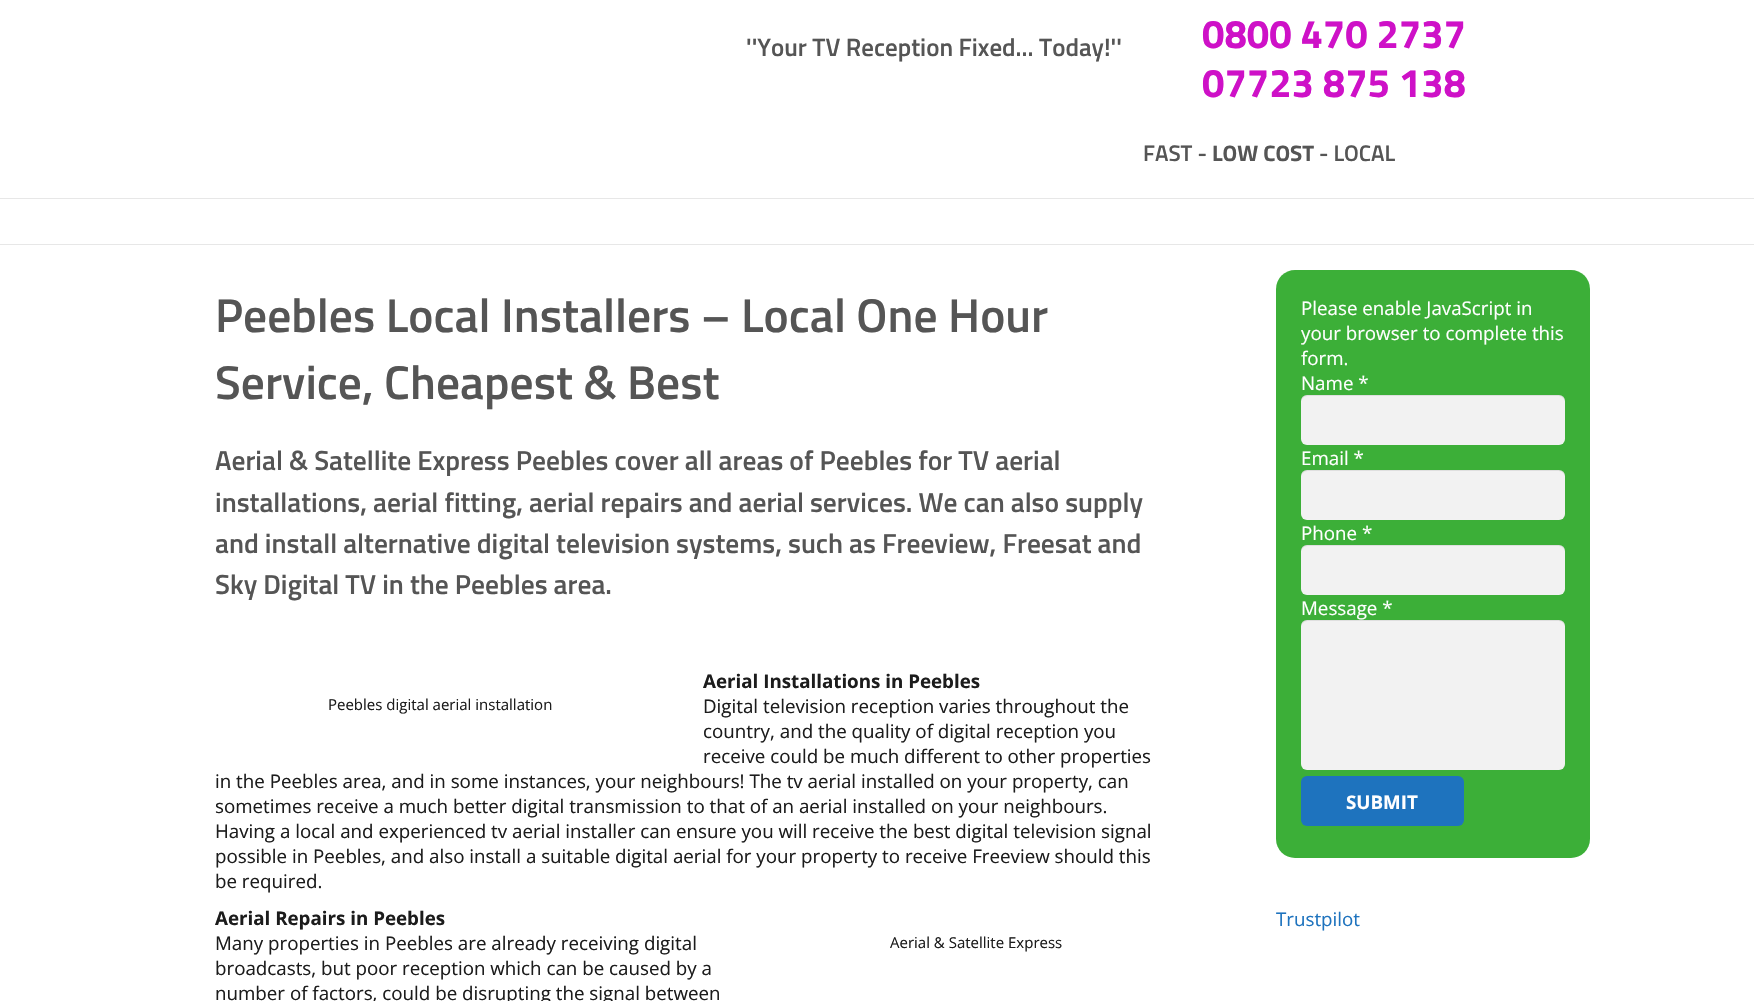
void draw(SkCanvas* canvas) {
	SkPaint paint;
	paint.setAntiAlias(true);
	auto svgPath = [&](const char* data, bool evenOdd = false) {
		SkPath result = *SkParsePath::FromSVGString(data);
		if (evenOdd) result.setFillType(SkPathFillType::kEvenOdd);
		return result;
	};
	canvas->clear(0xffffffff);
	SkFont f1(fontMgr->matchFamilyStyle("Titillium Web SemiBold", SkFontStyle(600, SkFontStyle::kNormal_Width, SkFontStyle::kUpright_Slant)), 25);
	f1.setSubpixel(true);
	paint.setColor(0xff555555);
	canvas->drawString("''Your TV Reception Fixed... Today!''", 746, 56, f1, paint);
	SkFont f2(fontMgr->matchFamilyStyle("Titillium Web", SkFontStyle::Bold()), 40);
	f2.setSubpixel(true);
	paint.setColor(0xffce11c7);
	canvas->drawString("0800 470 2737", 1202, 48, f2, paint);
	canvas->drawString("07723 875 138", 1202, 97, f2, paint);
	SkFont f3(fontMgr->matchFamilyStyle("Titillium Web SemiBold", SkFontStyle(600, SkFontStyle::kNormal_Width, SkFontStyle::kUpright_Slant)), 22.5);
	f3.setSubpixel(true);
	paint.setColor(0xff555555);
	canvas->drawString("FAST -", 1143, 161, f3, paint);
	SkFont f4(fontMgr->matchFamilyStyle("Titillium Web", SkFontStyle::Bold()), 22.5);
	f4.setSubpixel(true);
	canvas->drawString("LOW COST", 1212, 161, f4, paint);
	canvas->drawString("- LOCAL", 1319, 161, f3, paint);
	paint.setColor(0xffe7e7e7);
	canvas->drawRect(SkRect::MakeXYWH(0, 198, 1754, 1), paint);
	canvas->drawRect(SkRect::MakeXYWH(0, 244, 1754, 1), paint);
	SkFont f5(fontMgr->matchFamilyStyle("Titillium Web SemiBold", SkFontStyle(600, SkFontStyle::kNormal_Width, SkFontStyle::kUpright_Slant)), 47.5);
	f5.setSubpixel(true);
	paint.setColor(0xff555555);
	canvas->drawString("Peebles Local Installers – Local One Hour", 215, 332, f5, paint);
	canvas->drawString("Service, Cheapest & Best", 215, 399, f5, paint);
	SkFont f6(fontMgr->matchFamilyStyle("Titillium Web SemiBold", SkFontStyle(600, SkFontStyle::kNormal_Width, SkFontStyle::kUpright_Slant)), 27.5);
	f6.setSubpixel(true);
	canvas->drawString("Aerial & Satellite Express Peebles cover all areas of Peebles for TV aerial", 215, 470, f6, paint);
	canvas->drawString("installations, aerial fitting, aerial repairs and aerial services. We can also supply", 215, 512, f6, paint);
	canvas->drawString("and install alternative digital television systems, such as Freeview, Freesat and", 215, 553, f6, paint);
	canvas->drawString("Sky Digital TV in the Peebles area.", 215, 594, f6, paint);
	SkFont f7(fontMgr->matchFamilyStyle("Open Sans", SkFontStyle::Bold()), 18.75);
	f7.setSubpixel(true);
	paint.setColor(0xff1c1c1c);
	canvas->drawString("Aerial Installations in Peebles", 703, 688, f7, paint);
	SkFont f8(fontMgr->matchFamilyStyle("Open Sans", SkFontStyle::Normal()), 18.75);
	f8.setSubpixel(true);
	canvas->drawString("Digital television reception varies throughout the", 703, 713, f8, paint);
	canvas->drawString("country, and the quality of digital reception you", 703, 738, f8, paint);
	canvas->drawString("receive could be much different to other properties", 703, 763, f8, paint);
	canvas->drawString("in the Peebles area, and in some instances, your neighbours! The tv aerial installed on your property, can", 215, 788, f8, paint);
	canvas->drawString("sometimes receive a much better digital transmission to that of an aerial installed on your neighbours.", 215, 813, f8, paint);
	canvas->drawString("Having a local and experienced tv aerial installer can ensure you will receive the best digital television signal", 215, 838, f8, paint);
	canvas->drawString("possible in Peebles, and also install a suitable digital aerial for your property to receive Freeview should this", 215, 863, f8, paint);
	canvas->drawString("be required.", 215, 888, f8, paint);
	SkFont f9(fontMgr->matchFamilyStyle("Open Sans", SkFontStyle::Normal()), 15);
	f9.setSubpixel(true);
	canvas->drawString("Peebles digital aerial installation", 328, 710, f9, paint);
	canvas->drawString("Aerial Repairs in Peebles", 215, 925, f7, paint);
	canvas->drawString("Many properties in Peebles are already receiving digital", 215, 950, f8, paint);
	canvas->drawString("broadcasts, but poor reception which can be caused by a", 215, 975, f8, paint);
	canvas->drawString("number of factors, could be disrupting the signal between", 215, 1000, f8, paint);
	canvas->drawString("Aerial & Satellite Express", 890, 948, f9, paint);
	paint.setColor(0xff3caf38);
	canvas->drawRoundRect(SkRect::MakeXYWH(1276, 270, 314, 588), 19, 19, paint);
	paint.setColor(0xffffffff);
	canvas->drawString("Please enable JavaScript in", 1301, 315, f8, paint);
	canvas->drawString("your browser to complete this", 1301, 340, f8, paint);
	canvas->drawString("form.", 1301, 365, f8, paint);
	canvas->drawString("Name *", 1301, 390, f8, paint);
	paint.setColor(0xfff2f2f2);
	canvas->drawRoundRect(SkRect::MakeXYWH(1301, 395, 264, 50), 6, 6, paint);
	paint.setColor(0x14000000);
	canvas->drawPath(svgPath("M1308 396H1559C1562 396 1565 399 1565 402V401C1565 398 1562 395 1559 395H1307C1304 395 1301 398 1301 401V402C1301 399 1304 396 1308 396Z"), paint);
	paint.setColor(0xffffffff);
	canvas->drawString("Email *", 1301, 465, f8, paint);
	paint.setColor(0xfff2f2f2);
	canvas->drawRoundRect(SkRect::MakeXYWH(1301, 470, 264, 50), 6, 6, paint);
	paint.setColor(0x14000000);
	canvas->drawPath(svgPath("M1308 471H1559C1562 471 1565 474 1565 478C1565 475 1564 471 1560 470H1306C1302 471 1301 475 1301 478C1301 474 1304 471 1308 471Z"), paint);
	paint.setColor(0xffffffff);
	canvas->drawString("Phone *", 1301, 540, f8, paint);
	paint.setColor(0xfff2f2f2);
	canvas->drawRoundRect(SkRect::MakeXYWH(1301, 545, 264, 50), 6, 6, paint);
	paint.setColor(0x14000000);
	canvas->drawPath(svgPath("M1308 546H1559C1562 546 1565 549 1565 552V551C1565 548 1562 545 1559 545H1307C1304 545 1301 548 1301 551V552C1301 549 1304 546 1308 546Z"), paint);
	paint.setColor(0xffffffff);
	canvas->drawString("Message *", 1301, 615, f8, paint);
	paint.setColor(0xfff2f2f2);
	canvas->drawRoundRect(SkRect::MakeXYWH(1301, 620, 264, 150), 6, 6, paint);
	paint.setColor(0x14000000);
	canvas->drawPath(svgPath("M1308 621H1559C1562 621 1565 624 1565 628C1565 625 1564 621 1560 620H1306C1302 621 1301 625 1301 628C1301 624 1304 621 1308 621Z"), paint);
	paint.setColor(0xff1e73be);
	canvas->drawRoundRect(SkRect::MakeXYWH(1301, 776, 163, 50), 6, 6, paint);
	paint.setColor(0xffffffff);
	canvas->drawString("SUBMIT", 1346, 809, f7, paint);
	paint.setColor(0xff1e73be);
	canvas->drawString("Trustpilot", 1276, 926, f8, paint);
}
